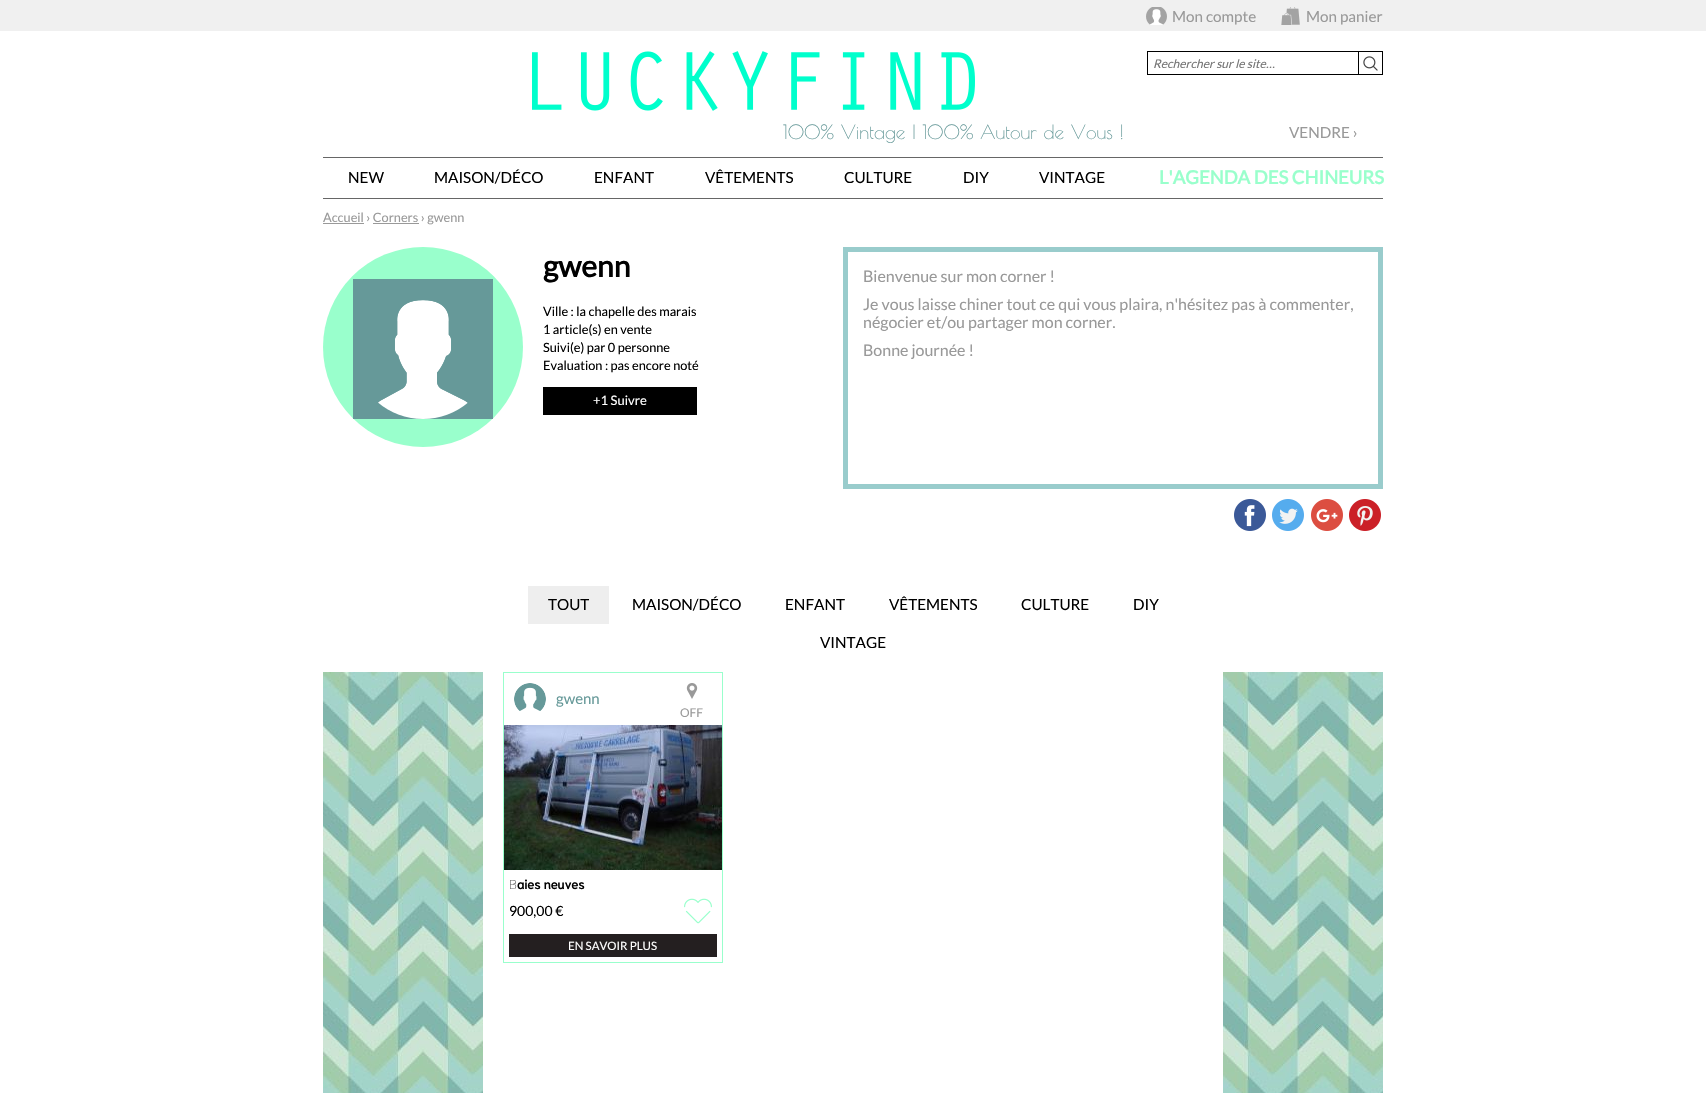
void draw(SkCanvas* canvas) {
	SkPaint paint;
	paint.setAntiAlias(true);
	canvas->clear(0xffffffff);
	paint.setColor(0xfff0f0f0);
	canvas->drawRect(SkRect::MakeXYWH(0, 0, 1706, 31), paint);
	canvas->drawImageRect(SkImages::DeferredFromEncodedData(SkData::MakeFromFileName("img1.png")), SkRect::MakeXYWH(1146, 7, 21, 18), SkSamplingOptions());
	SkFont f1(fontMgr->matchFamilyStyle("Lato", SkFontStyle::Normal()), 15.25);
	f1.setSubpixel(true);
	paint.setColor(0xff999999);
	canvas->drawString("Mon compte", 1172, 22, f1, paint);
	canvas->drawImageRect(SkImages::DeferredFromEncodedData(SkData::MakeFromFileName("img2.png")), SkRect::MakeXYWH(1281, 7, 19, 18), SkSamplingOptions());
	canvas->drawString("Mon panier", 1306, 22, f1, paint);
	paint.setStroke(true);
	paint.setStrokeWidth(1);
	paint.setColor(0xff000000);
	canvas->drawRect(SkRect::MakeXYWH(1147.5, 51.5, 211, 23), paint);
	SkFont f2(fontMgr->matchFamilyStyle("Lato", SkFontStyle::Italic()), 12);
	f2.setSubpixel(true);
	paint.setStroke(false);
	paint.setColor(0xff757575);
	canvas->drawString("Rechercher sur le site…", 1153, 68, f2, paint);
	canvas->drawImageRect(SkImages::DeferredFromEncodedData(SkData::MakeFromFileName("img3.png")), SkRect::MakeXYWH(1363, 56, 15, 15), SkSamplingOptions());
	paint.setColor(0xff000000);
	canvas->drawRect(SkRect::MakeXYWH(1359, 51, 24, 1), paint);
	canvas->drawRect(SkRect::MakeXYWH(1382, 51, 1, 24), paint);
	canvas->drawRect(SkRect::MakeXYWH(1359, 74, 24, 1), paint);
	canvas->drawImageRect(SkImages::DeferredFromEncodedData(SkData::MakeFromFileName("img4.png")), SkRect::MakeXYWH(532, 51, 443, 60), SkSamplingOptions());
	SkFont f3(fontMgr->matchFamilyStyle("Poiret One", SkFontStyle::Normal()), 19.25);
	f3.setSubpixel(true);
	paint.setColor(0xff669999);
	canvas->drawString("100% Vintage | 100% Autour de Vous !", 783, 139, f3, paint);
	paint.setColor(0xff666666);
	canvas->drawRect(SkRect::MakeXYWH(323, 157, 1060, 1), paint);
	canvas->drawRect(SkRect::MakeXYWH(323, 198, 1060, 1), paint);
	paint.setColor(0xff999999);
	canvas->drawString("VENDRE ›", 1289, 138, f1, paint);
	paint.setColor(0xff000000);
	canvas->drawString("NEW", 348, 183, f1, paint);
	canvas->drawString("MAISON/DÉCO", 434, 183, f1, paint);
	canvas->drawString("ENFANT", 594, 183, f1, paint);
	canvas->drawString("VÊTEMENTS", 705, 183, f1, paint);
	canvas->drawString("CULTURE", 844, 183, f1, paint);
	canvas->drawString("DIY", 963, 183, f1, paint);
	canvas->drawString("VINTAGE", 1039, 183, f1, paint);
	SkFont f4(fontMgr->matchFamilyStyle("Lato", SkFontStyle::Bold()), 18.5);
	f4.setSubpixel(true);
	paint.setColor(0xff99ffcc);
	canvas->drawString("L'AGENDA DES CHINEURS", 1159, 184, f4, paint);
	paint.setColor(0xff999999);
	canvas->drawRect(SkRect::MakeXYWH(323, 223, 41, 1), paint);
	SkFont f5(fontMgr->matchFamilyStyle("Lato", SkFontStyle::Normal()), 12.75);
	f5.setSubpixel(true);
	canvas->drawString("Accueil › Corners › gwenn", 323, 222, f5, paint);
	canvas->drawRect(SkRect::MakeXYWH(373, 223, 46, 1), paint);
	paint.setColor(0xff99ffcc);
	canvas->drawCircle(423, 347, 100, paint);
	paint.setColor(0xff669999);
	canvas->drawRect(SkRect::MakeXYWH(353, 279, 140, 140), paint);
	canvas->drawImageRect(SkImages::DeferredFromEncodedData(SkData::MakeFromFileName("img5.png")), SkRect::MakeXYWH(378, 300, 90, 119), SkSamplingOptions());
	SkFont f6(fontMgr->matchFamilyStyle("Lato", SkFontStyle::Bold()), 30);
	f6.setSubpixel(true);
	paint.setColor(0xff000000);
	canvas->drawString("gwenn", 543, 277, f6, paint);
	canvas->drawString("Ville : la chapelle des marais", 543, 316, f5, paint);
	canvas->drawString("1 article(s) en vente", 543, 334, f5, paint);
	canvas->drawString("Suivi(e) par 0 personne", 543, 352, f5, paint);
	canvas->drawString("Evaluation : pas encore noté", 543, 370, f5, paint);
	canvas->drawRect(SkRect::MakeXYWH(543, 387, 154, 28), paint);
	SkFont f7(fontMgr->matchFamilyStyle("Lato", SkFontStyle::Normal()), 13);
	f7.setSubpixel(true);
	paint.setColor(0xffffffff);
	canvas->drawString("+1 Suivre", 593, 405, f7, paint);
	paint.setStroke(true);
	paint.setStrokeWidth(5);
	paint.setColor(0xff99cccc);
	canvas->drawRect(SkRect::MakeXYWH(845.5, 249.5, 535, 237), paint);
	SkFont f8(fontMgr->matchFamilyStyle("Lato", SkFontStyle::Normal()), 16);
	f8.setSubpixel(true);
	paint.setStroke(false);
	paint.setColor(0xff999999);
	canvas->drawString("Bienvenue sur mon corner !", 863, 282, f8, paint);
	canvas->drawString("Je vous laisse chiner tout ce qui vous plaira, n'hésitez pas à commenter,", 863, 310, f8, paint);
	canvas->drawString("négocier et/ou partager mon corner.", 863, 328, f8, paint);
	canvas->drawString("Bonne journée !", 863, 356, f8, paint);
	canvas->drawImageRect(SkImages::DeferredFromEncodedData(SkData::MakeFromFileName("img6.png")), SkRect::MakeXYWH(1234, 499, 32, 32), SkSamplingOptions());
	canvas->drawImageRect(SkImages::DeferredFromEncodedData(SkData::MakeFromFileName("img7.png")), SkRect::MakeXYWH(1272, 499, 32, 32), SkSamplingOptions());
	canvas->drawImageRect(SkImages::DeferredFromEncodedData(SkData::MakeFromFileName("img8.png")), SkRect::MakeXYWH(1311, 499, 32, 32), SkSamplingOptions());
	canvas->drawImageRect(SkImages::DeferredFromEncodedData(SkData::MakeFromFileName("img9.png")), SkRect::MakeXYWH(1349, 499, 32, 32), SkSamplingOptions());
	canvas->drawImageRect(SkImages::DeferredFromEncodedData(SkData::MakeFromFileName("img10.png")), SkRect::MakeXYWH(323, 672, 1060, 421), SkSamplingOptions());
	paint.setColor(0xffeeeeee);
	canvas->drawRect(SkRect::MakeXYWH(528, 586, 81, 38), paint);
	paint.setColor(0xff000000);
	canvas->drawString("TOUT", 548, 610, f1, paint);
	canvas->drawString("MAISON/DÉCO", 632, 610, f1, paint);
	canvas->drawString("ENFANT", 785, 610, f1, paint);
	canvas->drawString("VÊTEMENTS", 889, 610, f1, paint);
	canvas->drawString("CULTURE", 1021, 610, f1, paint);
	canvas->drawString("DIY", 1133, 610, f1, paint);
	canvas->drawString("VINTAGE", 820, 648, f1, paint);
	paint.setColor(0xffffffff);
	canvas->drawRect(SkRect::MakeXYWH(483, 672, 740, 421), paint);
	paint.setStroke(true);
	paint.setStrokeWidth(1);
	paint.setColor(0xff99ffcc);
	canvas->drawRect(SkRect::MakeXYWH(503.5, 672.5, 219, 290), paint);
	canvas->drawImageRect(SkImages::DeferredFromEncodedData(SkData::MakeFromFileName("img11.png")), SkRect::MakeXYWH(514, 683, 32, 28), SkSamplingOptions());
	SkFont f9(fontMgr->matchFamilyStyle("Lato", SkFontStyle::Normal()), 15);
	f9.setSubpixel(true);
	paint.setStroke(false);
	paint.setColor(0xff669999);
	canvas->drawString("gwenn", 556, 704, f9, paint);
	canvas->drawImageRect(SkImages::DeferredFromEncodedData(SkData::MakeFromFileName("img12.png")), SkRect::MakeXYWH(686, 683, 12, 16), SkSamplingOptions());
	SkFont f10(fontMgr->matchFamilyStyle("Lato", SkFontStyle::Normal()), 12);
	f10.setSubpixel(true);
	paint.setColor(0xff999999);
	canvas->drawString("OFF", 680, 717, f10, paint);
	canvas->drawImageRect(SkImages::DeferredFromEncodedData(SkData::MakeFromFileName("img13.png")), SkRect::MakeXYWH(504, 725, 218, 145), SkSamplingOptions());
	SkFont f11(fontMgr->matchFamilyStyle("Noto Sans", SkFontStyle(100, SkFontStyle::kNormal_Width, SkFontStyle::kUpright_Slant)), 12.75);
	f11.setSubpixel(true);
	paint.setColor(0xff000000);
	canvas->drawString("B", 509, 889, f11, paint);
	SkFont f12(fontMgr->matchFamilyStyle("Niramit", SkFontStyle::Bold()), 12.75);
	f12.setSubpixel(true);
	canvas->drawString("aies neuves", 517, 889, f12, paint);
	SkFont f13(fontMgr->matchFamilyStyle("Lato", SkFontStyle::Normal()), 14);
	f13.setSubpixel(true);
	canvas->drawString("900,00 €", 509, 916, f13, paint);
	canvas->drawImageRect(SkImages::DeferredFromEncodedData(SkData::MakeFromFileName("img14.png")), SkRect::MakeXYWH(684, 898, 28, 26), SkSamplingOptions());
	paint.setColor(0xff241f20);
	canvas->drawRect(SkRect::MakeXYWH(509, 934, 208, 23), paint);
	SkFont f14(fontMgr->matchFamilyStyle("Lato", SkFontStyle::Normal()), 11.5);
	f14.setSubpixel(true);
	paint.setColor(0xffffffff);
	canvas->drawString("EN SAVOIR PLUS", 568, 950, f14, paint);
}
